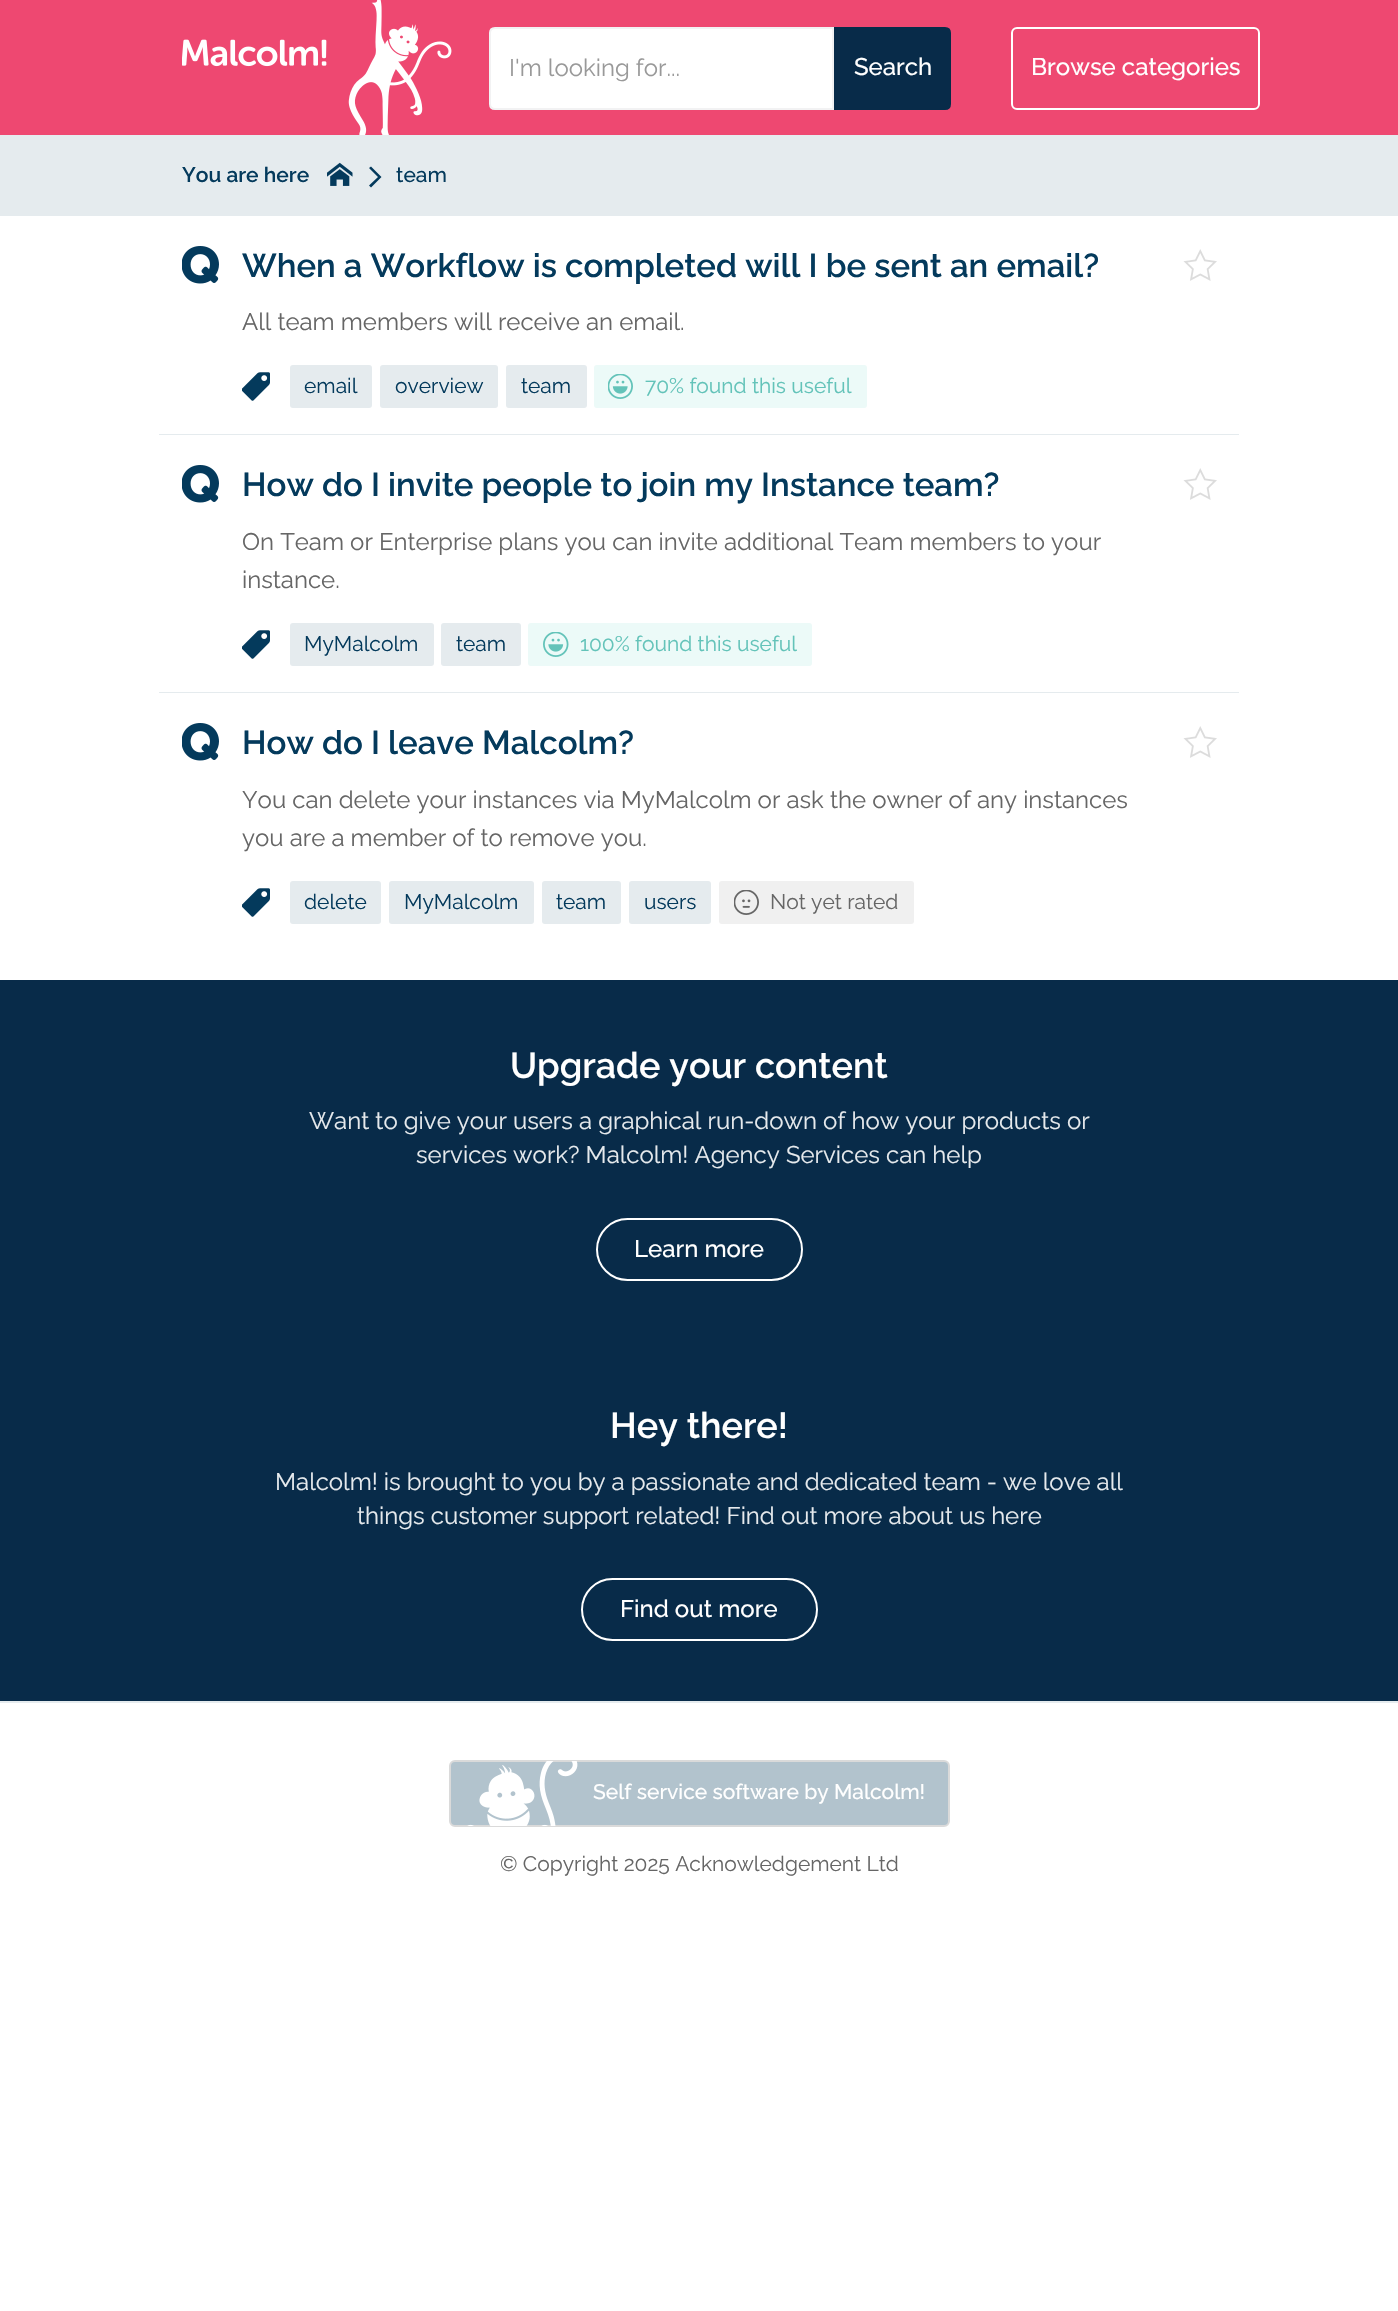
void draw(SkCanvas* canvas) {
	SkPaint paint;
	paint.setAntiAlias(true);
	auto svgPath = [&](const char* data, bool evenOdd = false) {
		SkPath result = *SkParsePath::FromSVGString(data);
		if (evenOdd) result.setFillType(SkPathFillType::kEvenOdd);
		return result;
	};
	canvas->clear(0xffffffff);
	paint.setColor(0xffee4871);
	canvas->drawRect(SkRect::MakeXYWH(0, 0, 1398, 135), paint);
	canvas->drawImageRect(SkImages::DeferredFromEncodedData(SkData::MakeFromFileName("img1.png")), SkRect::MakeXYWH(182, 0, 270, 135), SkSamplingOptions());
	paint.setColor(0xffffffff);
	canvas->drawPath(svgPath("M495 28H833V109H495C492 109 490 107 490 104V33C490 30 492 28 495 28Z"), paint);
	paint.setStroke(true);
	paint.setStrokeWidth(2);
	paint.setColor(0xfff2f2f3);
	canvas->drawPath(svgPath("M495 28H833V109H495C492 109 490 107 490 104V33C490 30 492 28 495 28Z"), paint);
	SkFont f1(fontMgr->matchFamilyStyle("Raleway", SkFontStyle::Normal()), 24);
	f1.setSubpixel(true);
	paint.setStroke(false);
	paint.setColor(0xff999999);
	canvas->drawString("I'm looking for...", 509, 76, f1, paint);
	paint.setColor(0xff082b49);
	canvas->drawPath(svgPath("M835 28H945C948 28 950 30 950 33V104C950 107 948 109 945 109H835Z"), paint);
	paint.setStroke(true);
	canvas->drawPath(svgPath("M835 28H945C948 28 950 30 950 33V104C950 107 948 109 945 109H835Z"), paint);
	SkFont f2(fontMgr->matchFamilyStyle("Raleway", SkFontStyle(500, SkFontStyle::kNormal_Width, SkFontStyle::kUpright_Slant)), 24);
	f2.setSubpixel(true);
	paint.setStroke(false);
	paint.setColor(0xffffffff);
	canvas->drawString("Search", 854, 75, f2, paint);
	paint.setStroke(true);
	canvas->drawRoundRect(SkRect::MakeXYWH(1012, 28, 247, 81), 5, 5, paint);
	paint.setStroke(false);
	canvas->drawString("Browse categories", 1031, 75, f2, paint);
	paint.setColor(0xffe5ebee);
	canvas->drawRect(SkRect::MakeXYWH(0, 135, 1398, 81), paint);
	SkFont f3(fontMgr->matchFamilyStyle("Raleway", SkFontStyle(600, SkFontStyle::kNormal_Width, SkFontStyle::kUpright_Slant)), 21);
	f3.setSubpixel(true);
	paint.setColor(0xff043a5c);
	canvas->drawString("You are here", 182, 182, f3, paint);
	canvas->drawImageRect(SkImages::DeferredFromEncodedData(SkData::MakeFromFileName("img2.png")), SkRect::MakeXYWH(327, 162, 26, 24), SkSamplingOptions());
	canvas->drawPath(svgPath("M369 168L378 177L369 185.5L371 187.5L381.5 177L371 166.5Z"), paint);
	SkFont f4(fontMgr->matchFamilyStyle("Raleway", SkFontStyle(500, SkFontStyle::kNormal_Width, SkFontStyle::kUpright_Slant)), 21);
	f4.setSubpixel(true);
	canvas->drawString("team", 396, 182, f4, paint);
	paint.setColor(0xffe5ebee);
	canvas->drawRect(SkRect::MakeXYWH(159, 434, 1080, 1), paint);
	canvas->drawImageRect(SkImages::DeferredFromEncodedData(SkData::MakeFromFileName("img3.png")), SkRect::MakeXYWH(182, 246, 37, 38), SkSamplingOptions());
	SkFont f5(fontMgr->matchFamilyStyle("Raleway", SkFontStyle(600, SkFontStyle::kNormal_Width, SkFontStyle::kUpright_Slant)), 33);
	f5.setSubpixel(true);
	paint.setColor(0xff043a5c);
	canvas->drawString("When a Workflow is completed will I be sent an email?", 242, 277, f5, paint);
	paint.setColor(0xff666666);
	canvas->drawString("All team members will receive an email.", 242, 330, f1, paint);
	canvas->drawImageRect(SkImages::DeferredFromEncodedData(SkData::MakeFromFileName("img4.png")), SkRect::MakeXYWH(242, 372, 28, 29), SkSamplingOptions());
	paint.setColor(0xffe5ebee);
	canvas->drawRoundRect(SkRect::MakeXYWH(290, 365, 82, 43), 3, 3, paint);
	SkFont f6(fontMgr->matchFamilyStyle("Raleway", SkFontStyle::Normal()), 21);
	f6.setSubpixel(true);
	paint.setColor(0xff043a5c);
	canvas->drawString("email", 304, 393, f6, paint);
	paint.setColor(0xffe5ebee);
	canvas->drawRoundRect(SkRect::MakeXYWH(380, 365, 118, 43), 3, 3, paint);
	paint.setColor(0xff043a5c);
	canvas->drawString("overview", 395, 393, f6, paint);
	paint.setColor(0xffe5ebee);
	canvas->drawRoundRect(SkRect::MakeXYWH(506, 365, 81, 43), 3, 3, paint);
	paint.setColor(0xff043a5c);
	canvas->drawString("team", 521, 393, f6, paint);
	paint.setColor(0xffecfaf8);
	canvas->drawRoundRect(SkRect::MakeXYWH(594, 365, 273, 43), 3, 3, paint);
	canvas->drawImageRect(SkImages::DeferredFromEncodedData(SkData::MakeFromFileName("img5.png")), SkRect::MakeXYWH(608, 374, 25, 25), SkSamplingOptions());
	paint.setColor(0xff63c3b9);
	canvas->drawString("70% found this useful", 645, 393, f6, paint);
	canvas->drawImageRect(SkImages::DeferredFromEncodedData(SkData::MakeFromFileName("img6.png")), SkRect::MakeXYWH(1183, 249, 34, 32), SkSamplingOptions());
	paint.setColor(0xffe5ebee);
	canvas->drawRect(SkRect::MakeXYWH(159, 692, 1080, 1), paint);
	canvas->drawImageRect(SkImages::DeferredFromEncodedData(SkData::MakeFromFileName("img3.png")), SkRect::MakeXYWH(182, 465, 37, 38), SkSamplingOptions());
	paint.setColor(0xff043a5c);
	canvas->drawString("How do I invite people to join my Instance team?", 242, 496, f5, paint);
	paint.setColor(0xff666666);
	canvas->drawString("On Team or Enterprise plans you can invite additional Team members to your", 242, 550, f1, paint);
	canvas->drawString("instance.", 242, 588, f1, paint);
	canvas->drawImageRect(SkImages::DeferredFromEncodedData(SkData::MakeFromFileName("img4.png")), SkRect::MakeXYWH(242, 630, 28, 29), SkSamplingOptions());
	paint.setColor(0xffe5ebee);
	canvas->drawRoundRect(SkRect::MakeXYWH(290, 623, 144, 43), 3, 3, paint);
	paint.setColor(0xff043a5c);
	canvas->drawString("MyMalcolm", 304, 651, f6, paint);
	paint.setColor(0xffe5ebee);
	canvas->drawRoundRect(SkRect::MakeXYWH(441, 623, 80, 43), 3, 3, paint);
	paint.setColor(0xff043a5c);
	canvas->drawString("team", 456, 651, f6, paint);
	paint.setColor(0xffecfaf8);
	canvas->drawRoundRect(SkRect::MakeXYWH(528, 623, 284, 43), 3, 3, paint);
	canvas->drawImageRect(SkImages::DeferredFromEncodedData(SkData::MakeFromFileName("img7.png")), SkRect::MakeXYWH(543, 632, 26, 25), SkSamplingOptions());
	paint.setColor(0xff63c3b9);
	canvas->drawString("100% found this useful", 580, 651, f6, paint);
	canvas->drawImageRect(SkImages::DeferredFromEncodedData(SkData::MakeFromFileName("img6.png")), SkRect::MakeXYWH(1183, 468, 34, 32), SkSamplingOptions());
	canvas->drawImageRect(SkImages::DeferredFromEncodedData(SkData::MakeFromFileName("img3.png")), SkRect::MakeXYWH(182, 723, 37, 38), SkSamplingOptions());
	paint.setColor(0xff043a5c);
	canvas->drawString("How do I leave Malcolm?", 242, 754, f5, paint);
	paint.setColor(0xff666666);
	canvas->drawString("You can delete your instances via MyMalcolm or ask the owner of any instances", 242, 808, f1, paint);
	canvas->drawString("you are a member of to remove you.", 242, 846, f1, paint);
	canvas->drawImageRect(SkImages::DeferredFromEncodedData(SkData::MakeFromFileName("img4.png")), SkRect::MakeXYWH(242, 888, 28, 29), SkSamplingOptions());
	paint.setColor(0xffe5ebee);
	canvas->drawRoundRect(SkRect::MakeXYWH(290, 881, 91, 43), 3, 3, paint);
	paint.setColor(0xff043a5c);
	canvas->drawString("delete", 304, 909, f6, paint);
	paint.setColor(0xffe5ebee);
	canvas->drawRoundRect(SkRect::MakeXYWH(389, 881, 145, 43), 3, 3, paint);
	paint.setColor(0xff043a5c);
	canvas->drawString("MyMalcolm", 404, 909, f6, paint);
	paint.setColor(0xffe5ebee);
	canvas->drawRoundRect(SkRect::MakeXYWH(542, 881, 79, 43), 3, 3, paint);
	paint.setColor(0xff043a5c);
	canvas->drawString("team", 556, 909, f6, paint);
	paint.setColor(0xffe5ebee);
	canvas->drawRoundRect(SkRect::MakeXYWH(629, 881, 82, 43), 3, 3, paint);
	paint.setColor(0xff043a5c);
	canvas->drawString("users", 644, 909, f6, paint);
	paint.setColor(0xfff0f0f0);
	canvas->drawRoundRect(SkRect::MakeXYWH(719, 881, 195, 43), 3, 3, paint);
	canvas->drawImageRect(SkImages::DeferredFromEncodedData(SkData::MakeFromFileName("img8.png")), SkRect::MakeXYWH(734, 890, 25, 25), SkSamplingOptions());
	paint.setColor(0xff666666);
	canvas->drawString("Not yet rated", 770, 909, f6, paint);
	canvas->drawImageRect(SkImages::DeferredFromEncodedData(SkData::MakeFromFileName("img6.png")), SkRect::MakeXYWH(1183, 726, 34, 32), SkSamplingOptions());
	paint.setColor(0xff082b49);
	canvas->drawRect(SkRect::MakeXYWH(0, 980, 1398, 721), paint);
	SkFont f7(fontMgr->matchFamilyStyle("Raleway", SkFontStyle(600, SkFontStyle::kNormal_Width, SkFontStyle::kUpright_Slant)), 36);
	f7.setSubpixel(true);
	paint.setColor(0xffffffff);
	canvas->drawString("Upgrade your content", 510, 1078, f7, paint);
	paint.setColor(0xffe6eaed);
	canvas->drawString("Want to give your users a graphical run-down of how your products or", 309, 1129, f1, paint);
	canvas->drawString("services work? Malcolm! Agency Services can help", 416, 1163, f1, paint);
	paint.setStroke(true);
	paint.setColor(0xffffffff);
	canvas->drawRoundRect(SkRect::MakeXYWH(597, 1219, 205, 61), 30.5, 30.5, paint);
	paint.setStroke(false);
	canvas->drawString("Learn more", 634, 1257, f2, paint);
	canvas->drawString("Hey there!", 610, 1438, f7, paint);
	paint.setColor(0xffe6eaed);
	canvas->drawString("Malcolm! is brought to you by a passionate and dedicated team - we love all", 275, 1490, f1, paint);
	canvas->drawString("things customer support related! Find out more about us here", 357, 1524, f1, paint);
	paint.setStroke(true);
	paint.setColor(0xffffffff);
	canvas->drawRoundRect(SkRect::MakeXYWH(582, 1579, 235, 61), 30.5, 30.5, paint);
	paint.setStroke(false);
	canvas->drawString("Find out more", 620, 1617, f2, paint);
	paint.setColor(0xffe5ebee);
	canvas->drawRect(SkRect::MakeXYWH(0, 1701, 1398, 2), paint);
	paint.setColor(0xffb2c3cd);
	canvas->drawRoundRect(SkRect::MakeXYWH(450, 1761, 499, 65), 5, 5, paint);
	paint.setStroke(true);
	paint.setColor(0xffdadada);
	canvas->drawRoundRect(SkRect::MakeXYWH(450, 1761, 499, 65), 5, 5, paint);
	canvas->drawImageRect(SkImages::DeferredFromEncodedData(SkData::MakeFromFileName("img9.png")), SkRect::MakeXYWH(467, 1761, 111, 65), SkSamplingOptions());
	paint.setStroke(false);
	paint.setColor(0xffffffff);
	canvas->drawString("Self service software by Malcolm!", 593, 1799, f4, paint);
	paint.setColor(0xff666666);
	canvas->drawString("© Copyright 2025 Acknowledgement Ltd", 500, 1871, f6, paint);
}
